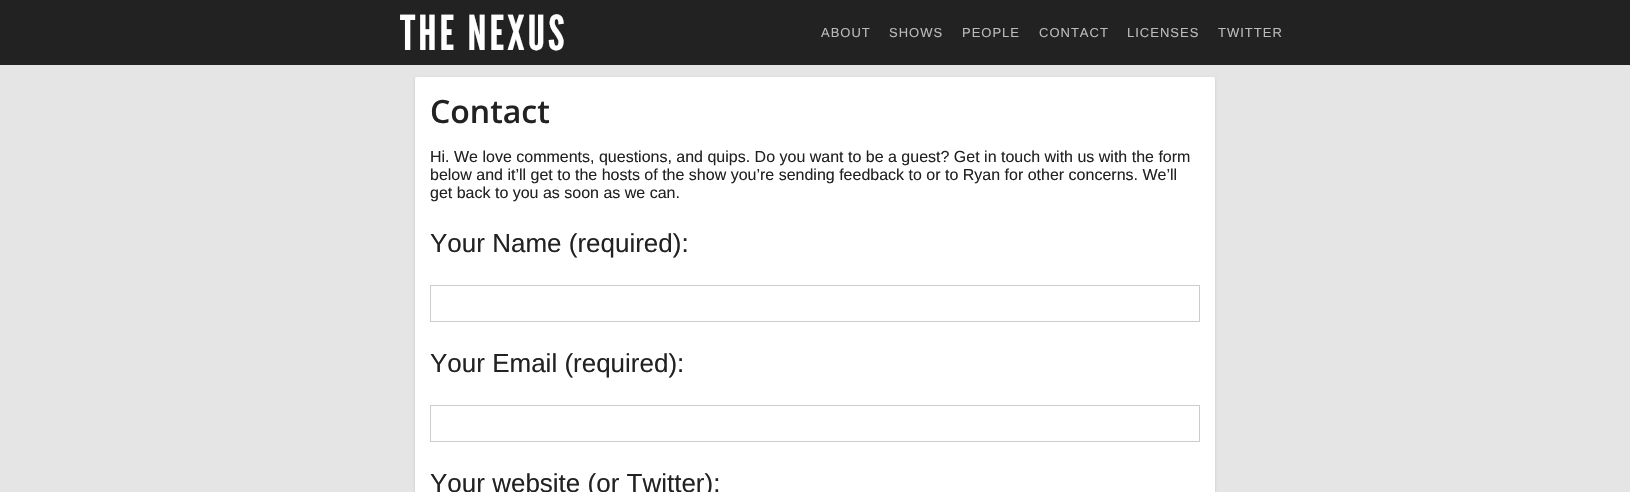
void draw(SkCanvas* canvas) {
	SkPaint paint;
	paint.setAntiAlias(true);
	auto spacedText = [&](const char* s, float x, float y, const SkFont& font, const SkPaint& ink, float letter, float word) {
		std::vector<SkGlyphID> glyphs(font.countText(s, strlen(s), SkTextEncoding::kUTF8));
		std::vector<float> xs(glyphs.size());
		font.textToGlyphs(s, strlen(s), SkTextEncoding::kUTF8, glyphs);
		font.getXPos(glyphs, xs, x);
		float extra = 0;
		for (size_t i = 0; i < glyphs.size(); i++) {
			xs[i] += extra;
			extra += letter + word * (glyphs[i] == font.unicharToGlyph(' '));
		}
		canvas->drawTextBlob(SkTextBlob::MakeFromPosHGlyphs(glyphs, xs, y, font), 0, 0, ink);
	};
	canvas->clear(0xff222222);
	SkFont f1(fontMgr->matchFamilyStyle("League Gothic", SkFontStyle::Normal()), 48);
	f1.setSubpixel(true);
	paint.setColor(0xffffffff);
	spacedText("THE NEXUS", 400, 50, f1, paint, 3, 0);
	SkFont f2(fontMgr->matchFamilyStyle("Liberation Sans", SkFontStyle::Normal()), 13);
	f2.setSubpixel(true);
	paint.setColor(0xffbbbbbb);
	spacedText("ABOUT", 821, 37, f2, paint, 1, 0);
	spacedText("SHOWS", 889, 37, f2, paint, 1, 0);
	spacedText("PEOPLE", 962, 37, f2, paint, 1, 0);
	spacedText("CONTACT", 1039, 37, f2, paint, 1, 0);
	spacedText("LICENSES", 1127, 37, f2, paint, 1, 0);
	spacedText("TWITTER", 1218, 37, f2, paint, 1, 0);
	paint.setColor(0xffe5e5e5);
	canvas->drawRect(SkRect::MakeXYWH(0, 65, 1630, 427), paint);
	paint.setColor(0x21000000);
	paint.setMaskFilter(SkMaskFilter::MakeBlur(kNormal_SkBlurStyle, 1.5));
	canvas->drawRoundRect(SkRect::MakeXYWH(415, 78, 800, 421), 2, 2, paint);
	paint.setMaskFilter(nullptr);
	paint.setColor(0xffffffff);
	canvas->drawRoundRect(SkRect::MakeXYWH(415, 77, 800, 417), 2, 2, paint);
	SkFont f3(fontMgr->matchFamilyStyle("Open Sans", SkFontStyle(600, SkFontStyle::kNormal_Width, SkFontStyle::kUpright_Slant)), 32);
	f3.setSubpixel(true);
	paint.setColor(0xff222222);
	canvas->drawString("Contact", 430, 123, f3, paint);
	SkFont f4(fontMgr->matchFamilyStyle("Liberation Sans", SkFontStyle::Normal()), 16);
	f4.setSubpixel(true);
	canvas->drawString("Hi. We love comments, questions, and quips. Do you want to be a guest? Get in touch with us with the form", 430, 162, f4, paint);
	canvas->drawString("below and it’ll get to the hosts of the show you’re sending feedback to or to Ryan for other concerns. We’ll", 430, 180, f4, paint);
	canvas->drawString("get back to you as soon as we can.", 430, 198, f4, paint);
	SkFont f5(fontMgr->matchFamilyStyle("Liberation Sans", SkFontStyle::Normal()), 26);
	f5.setSubpixel(true);
	canvas->drawString("Your Name (required):", 430, 252, f5, paint);
	paint.setStroke(true);
	paint.setStrokeWidth(1);
	paint.setColor(0xffcccccc);
	canvas->drawRect(SkRect::MakeXYWH(430.5, 285.5, 769, 36), paint);
	paint.setStroke(false);
	paint.setColor(0xff222222);
	canvas->drawString("Your Email (required):", 430, 372, f5, paint);
	paint.setStroke(true);
	paint.setColor(0xffcccccc);
	canvas->drawRect(SkRect::MakeXYWH(430.5, 405.5, 769, 36), paint);
	paint.setStroke(false);
	paint.setColor(0xff222222);
	canvas->drawString("Your website (or Twitter):", 430, 492, f5, paint);
}
